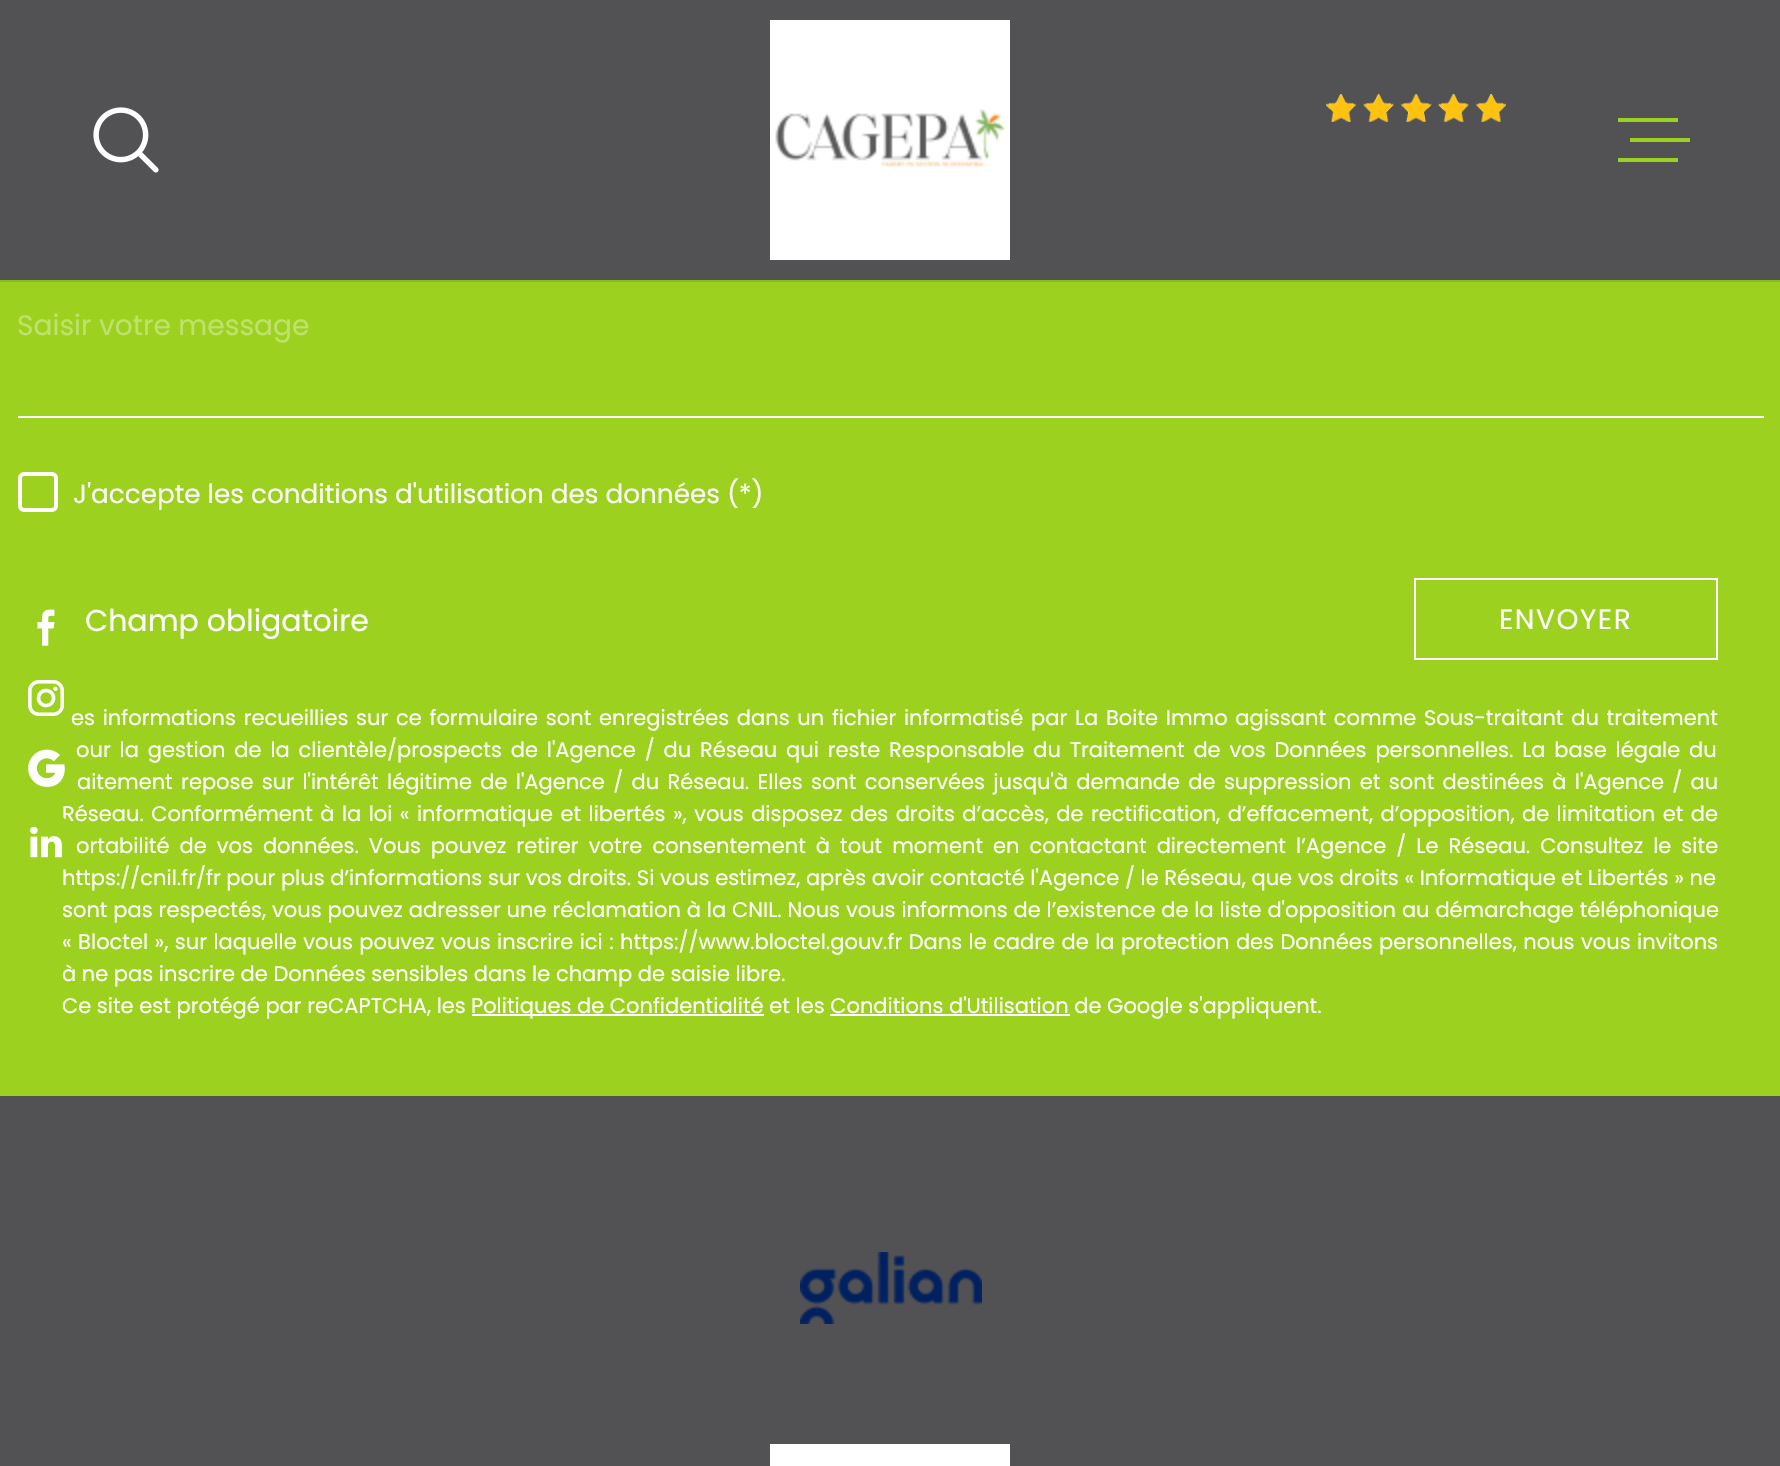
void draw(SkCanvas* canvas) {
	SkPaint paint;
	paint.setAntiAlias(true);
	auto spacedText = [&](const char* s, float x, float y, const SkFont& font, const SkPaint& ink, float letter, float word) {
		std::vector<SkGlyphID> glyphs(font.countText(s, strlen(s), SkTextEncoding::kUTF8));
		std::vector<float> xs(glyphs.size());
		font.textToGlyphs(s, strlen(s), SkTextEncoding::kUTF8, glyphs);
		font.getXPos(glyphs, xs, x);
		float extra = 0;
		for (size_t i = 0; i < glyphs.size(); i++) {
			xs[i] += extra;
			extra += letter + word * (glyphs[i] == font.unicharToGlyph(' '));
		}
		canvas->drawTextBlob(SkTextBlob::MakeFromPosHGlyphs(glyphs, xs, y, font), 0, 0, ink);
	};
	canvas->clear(0xff525254);
	canvas->drawImageRect(SkImages::DeferredFromEncodedData(SkData::MakeFromFileName("img1.png")), SkRect::MakeXYWH(93, 107, 66, 66), SkSamplingOptions());
	canvas->drawImageRect(SkImages::DeferredFromEncodedData(SkData::MakeFromFileName("img2.png")), SkRect::MakeXYWH(770, 20, 240, 240), SkSamplingOptions());
	paint.setColor(0xff9cd120);
	canvas->drawRect(SkRect::MakeXYWH(1630, 138, 60, 4), paint);
	canvas->drawRect(SkRect::MakeXYWH(1618, 118, 60, 4), paint);
	canvas->drawRect(SkRect::MakeXYWH(1618, 158, 60, 4), paint);
	canvas->drawRect(SkRect::MakeXYWH(0, 280, 1780, 816), paint);
	paint.setColor(0x1a000000);
	canvas->drawRect(SkRect::MakeXYWH(0, 280, 1780, 2), paint);
	canvas->drawImageRect(SkImages::DeferredFromEncodedData(SkData::MakeFromFileName("img3.png")), SkRect::MakeXYWH(1326, 94, 180, 28), SkSamplingOptions());
	paint.setColor(0xffffffff);
	canvas->drawRect(SkRect::MakeXYWH(18, 416, 1746, 2), paint);
	SkFont f1(fontMgr->matchFamilyStyle("Poppins", SkFontStyle::Normal()), 28.1);
	f1.setSubpixel(true);
	paint.setColor(0xffbfe16e);
	canvas->drawString("Saisir votre message", 17, 335, f1, paint);
	paint.setStroke(true);
	paint.setStrokeWidth(4);
	paint.setColor(0xffffffff);
	canvas->drawRoundRect(SkRect::MakeXYWH(20, 474, 36, 36), 4, 4, paint);
	SkFont f2(fontMgr->matchFamilyStyle("Poppins", SkFontStyle::Normal()), 26.25);
	f2.setSubpixel(true);
	paint.setStroke(false);
	canvas->drawString("J'accepte les conditions d'utilisation des données (*)", 73, 503, f2, paint);
	SkFont f3(fontMgr->matchFamilyStyle("Poppins", SkFontStyle::Normal()), 30);
	f3.setSubpixel(true);
	canvas->drawString("Champ obligatoire", 85, 631, f3, paint);
	paint.setStroke(true);
	paint.setStrokeWidth(2);
	canvas->drawRect(SkRect::MakeXYWH(1415, 579, 302, 80), paint);
	SkFont f4(fontMgr->matchFamilyStyle("Poppins", SkFontStyle::Normal()), 28);
	f4.setSubpixel(true);
	paint.setStroke(false);
	spacedText("ENVOYER", 1499, 629, f4, paint, 1.5, 0);
	SkFont f5(fontMgr->matchFamilyStyle("Poppins", SkFontStyle::Normal()), 21);
	f5.setSubpixel(true);
	spacedText("es informations recueillies sur ce formulaire sont enregistrées dans un fichier informatisé par La Boite Immo agissant comme Sous-traitant du traitement", 71, 725, f5, paint, 0, 2.1);
	spacedText("our la gestion de la clientèle/prospects de l'Agence / du Réseau qui reste Responsable du Traitement de vos Données personnelles. La base légale du", 76, 757, f5, paint, 0, 3.2);
	spacedText("aitement repose sur l'intérêt légitime de l'Agence / du Réseau. Elles sont conservées jusqu'à demande de suppression et sont destinées à l'Agence / au", 77, 789, f5, paint, 0, 2.7);
	spacedText("Réseau. Conformément à la loi « informatique et libertés », vous disposez des droits d’accès, de rectification, d’effacement, d’opposition, de limitation et de", 62, 821, f5, paint, 0, 1.8);
	spacedText("ortabilité de vos données. Vous pouvez retirer votre consentement à tout moment en contactant directement l’Agence / Le Réseau. Consultez le site", 76, 853, f5, paint, 0, 4.4);
	canvas->drawString("https://cnil.fr/fr pour plus d’informations sur vos droits. Si vous estimez, après avoir contacté l'Agence / le Réseau, que vos droits « Informatique et Libertés » ne", 62, 885, f5, paint);
	spacedText("sont pas respectés, vous pouvez adresser une réclamation à la CNIL. Nous vous informons de l’existence de la liste d'opposition au démarchage téléphonique", 62, 917, f5, paint, 0, 0.25);
	spacedText("« Bloctel », sur laquelle vous pouvez vous inscrire ici : https://www.bloctel.gouv.fr Dans le cadre de la protection des Données personnelles, nous vous invitons", 62, 949, f5, paint, 0, 0.8);
	canvas->drawString("à ne pas inscrire de Données sensibles dans le champ de saisie libre.", 62, 981, f5, paint);
	canvas->drawString("Ce site est protégé par reCAPTCHA, les", 62, 1013, f5, paint);
	canvas->drawRect(SkRect::MakeXYWH(472, 1014, 292, 2), paint);
	canvas->drawString("Politiques de Confidentialité et les Conditions d'Utilisation de Google s'appliquent.", 471, 1013, f5, paint);
	canvas->drawRect(SkRect::MakeXYWH(830, 1014, 240, 2), paint);
	canvas->drawImageRect(SkImages::DeferredFromEncodedData(SkData::MakeFromFileName("img4.png")), SkRect::MakeXYWH(800, 1252, 182, 72), SkSamplingOptions());
	canvas->drawRect(SkRect::MakeXYWH(770, 1444, 240, 22), paint);
	canvas->drawImageRect(SkImages::DeferredFromEncodedData(SkData::MakeFromFileName("img5.png")), SkRect::MakeXYWH(37, 609, 18, 37), SkSamplingOptions());
	canvas->drawImageRect(SkImages::DeferredFromEncodedData(SkData::MakeFromFileName("img6.png")), SkRect::MakeXYWH(28, 680, 36, 36), SkSamplingOptions());
	canvas->drawImageRect(SkImages::DeferredFromEncodedData(SkData::MakeFromFileName("img7.png")), SkRect::MakeXYWH(28, 749, 37, 38), SkSamplingOptions());
	paint.setColor(0xff9cd120);
	canvas->drawCircle(46, 842, 30, paint);
	canvas->drawImageRect(SkImages::DeferredFromEncodedData(SkData::MakeFromFileName("img8.png")), SkRect::MakeXYWH(30, 826, 32, 32), SkSamplingOptions());
}
